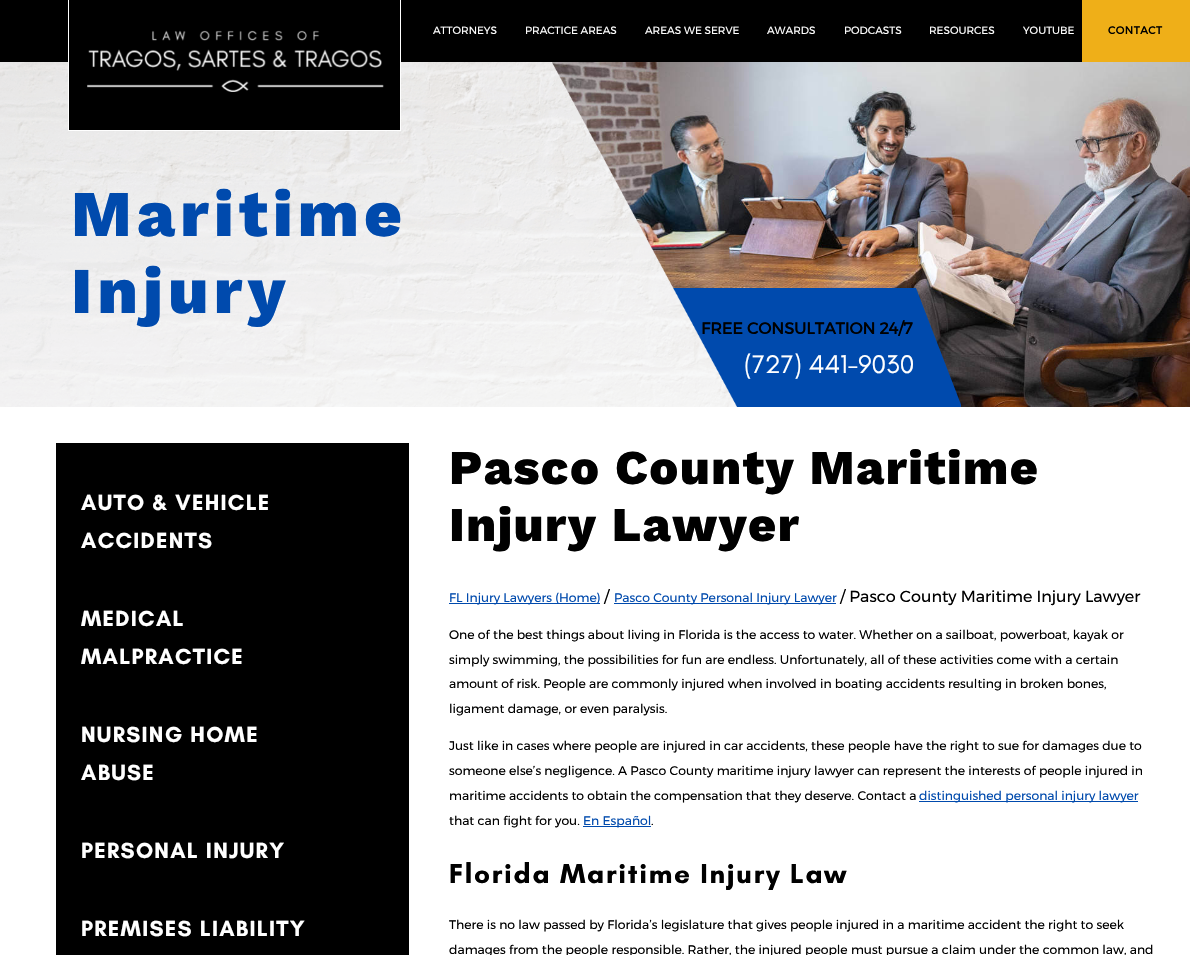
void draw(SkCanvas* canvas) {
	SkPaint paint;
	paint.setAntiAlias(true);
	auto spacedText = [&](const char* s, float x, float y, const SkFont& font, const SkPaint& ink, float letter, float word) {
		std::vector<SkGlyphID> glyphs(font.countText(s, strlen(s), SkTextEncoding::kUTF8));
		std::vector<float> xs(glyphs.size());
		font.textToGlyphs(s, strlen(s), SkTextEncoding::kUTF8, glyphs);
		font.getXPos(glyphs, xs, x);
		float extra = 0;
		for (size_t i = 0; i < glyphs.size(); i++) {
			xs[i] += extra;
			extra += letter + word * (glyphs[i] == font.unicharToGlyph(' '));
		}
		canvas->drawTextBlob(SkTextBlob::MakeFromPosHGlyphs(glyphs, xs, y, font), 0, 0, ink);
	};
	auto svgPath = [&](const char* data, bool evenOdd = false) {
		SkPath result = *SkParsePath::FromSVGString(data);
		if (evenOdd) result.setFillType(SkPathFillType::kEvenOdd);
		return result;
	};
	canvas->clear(0xffffffff);
	paint.setColor(0xff000000);
	canvas->drawRect(SkRect::MakeXYWH(0, 0, 1082, 62), paint);
	canvas->drawImageRect(SkImages::DeferredFromEncodedData(SkData::MakeFromFileName("img2.png")), SkRect::MakeXYWH(552, 62, 638, 345), SkSamplingOptions());
	canvas->save();
	canvas->clipRect(SkRect::MakeXYWH(607, 288, 354, 119));
	paint.setColor(0xff004aad);
	canvas->drawPath(svgPath("M607 407H962L916 288H607Z"), paint);
	canvas->restore();
	SkFont f1(fontMgr->matchFamilyStyle("Montserrat", SkFontStyle::Bold()), 16.1);
	f1.setSubpixel(true);
	paint.setColor(0xff000000);
	canvas->drawString("FREE CONSULTATION 24/7", 701, 334, f1, paint);
	canvas->drawImageRect(SkImages::DeferredFromEncodedData(SkData::MakeFromFileName("img3.png")), SkRect::MakeXYWH(0, 62, 738, 345), SkSamplingOptions());
	canvas->drawRect(SkRect::MakeXYWH(69, 62, 331, 68), paint);
	paint.setColor(0xffffffff);
	canvas->drawRect(SkRect::MakeXYWH(400, 0, 1, 131), paint);
	canvas->drawRect(SkRect::MakeXYWH(68, 130, 333, 1), paint);
	canvas->drawRect(SkRect::MakeXYWH(68, 0, 1, 131), paint);
	canvas->drawImageRect(SkImages::DeferredFromEncodedData(SkData::MakeFromFileName("img1.png")), SkRect::MakeXYWH(87, 30, 297, 62), SkSamplingOptions());
	SkFont f2(fontMgr->matchFamilyStyle("Montserrat", SkFontStyle::Normal()), 10.5);
	f2.setSubpixel(true);
	canvas->drawString("ATTORNEYS", 433, 34, f2, paint);
	canvas->drawString("PRACTICE AREAS", 525, 34, f2, paint);
	canvas->drawString("AREAS WE SERVE", 645, 34, f2, paint);
	canvas->drawString("AWARDS", 767, 34, f2, paint);
	canvas->drawString("PODCASTS", 844, 34, f2, paint);
	canvas->drawString("RESOURCES", 929, 34, f2, paint);
	canvas->drawString("YOUTUBE", 1023, 34, f2, paint);
	paint.setColor(0xffefaf18);
	canvas->drawRect(SkRect::MakeXYWH(1082, 0, 108, 62), paint);
	SkFont f3(fontMgr->matchFamilyStyle("Montserrat", SkFontStyle::Bold()), 10.5);
	f3.setSubpixel(true);
	paint.setColor(0xff000000);
	spacedText("CONTACT", 1108, 34, f3, paint, 0.5, 0);
	SkFont f4(fontMgr->matchFamilyStyle("Work Sans", SkFontStyle(800, SkFontStyle::kNormal_Width, SkFontStyle::kUpright_Slant)), 65.25);
	f4.setSubpixel(true);
	paint.setColor(0xff004aad);
	spacedText("Maritime", 71, 236, f4, paint, 5.25, 0);
	spacedText("Injury", 71, 313, f4, paint, 5.25, 0);
	SkFont f5(fontMgr->matchFamilyStyle("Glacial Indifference", SkFontStyle::Normal()), 26);
	f5.setSubpixel(true);
	paint.setColor(0xffffffff);
	canvas->drawString("(727) 441-9030", 744, 373, f5, paint);
	paint.setColor(0xff000000);
	canvas->drawRect(SkRect::MakeXYWH(56, 443, 353, 512), paint);
	SkFont f6(fontMgr->matchFamilyStyle("Glacial Indifference", SkFontStyle::Bold()), 22.25);
	f6.setSubpixel(true);
	paint.setColor(0xffffffff);
	spacedText("AUTO & VEHICLE", 81, 510, f6, paint, 1.3, 0);
	spacedText("ACCIDENTS", 81, 548, f6, paint, 1.3, 0);
	spacedText("MEDICAL", 81, 626, f6, paint, 1.3, 0);
	spacedText("MALPRACTICE", 81, 664, f6, paint, 1.3, 0);
	spacedText("NURSING HOME", 81, 742, f6, paint, 1.3, 0);
	spacedText("ABUSE", 81, 780, f6, paint, 1.3, 0);
	spacedText("PERSONAL INJURY", 81, 858, f6, paint, 1.3, 0);
	spacedText("PREMISES LIABILITY", 81, 936, f6, paint, 1.3, 0);
	SkFont f7(fontMgr->matchFamilyStyle("Work Sans", SkFontStyle(800, SkFontStyle::kNormal_Width, SkFontStyle::kUpright_Slant)), 48.4);
	f7.setSubpixel(true);
	paint.setColor(0xff000000);
	spacedText("Pasco County Maritime", 449, 484, f7, paint, 1.45, 0);
	spacedText("Injury Lawyer", 449, 541, f7, paint, 1.45, 0);
	paint.setColor(0xff004aad);
	canvas->drawRect(SkRect::MakeXYWH(449, 603, 151, 1), paint);
	SkFont f8(fontMgr->matchFamilyStyle("Montserrat", SkFontStyle::Normal()), 12.4);
	f8.setSubpixel(true);
	canvas->drawString("FL Injury Lawyers (Home)", 449, 602, f8, paint);
	SkFont f9(fontMgr->matchFamilyStyle("Montserrat", SkFontStyle::Normal()), 16);
	f9.setSubpixel(true);
	paint.setColor(0xff000000);
	canvas->drawString("/", 604, 602, f9, paint);
	paint.setColor(0xff004aad);
	canvas->drawRect(SkRect::MakeXYWH(614, 603, 222, 1), paint);
	canvas->drawString("Pasco County Personal Injury Lawyer", 614, 602, f8, paint);
	paint.setColor(0xff000000);
	canvas->drawString("/ Pasco County Maritime Injury Lawyer", 840, 602, f9, paint);
	canvas->drawString("One of the best things about living in Florida is the access to water. Whether on a sailboat, powerboat, kayak or", 449, 639, f8, paint);
	canvas->drawString("simply swimming, the possibilities for fun are endless. Unfortunately, all of these activities come with a certain", 449, 664, f8, paint);
	canvas->drawString("amount of risk. People are commonly injured when involved in boating accidents resulting in broken bones,", 449, 688, f8, paint);
	canvas->drawString("ligament damage, or even paralysis.", 449, 713, f8, paint);
	canvas->drawString("Just like in cases where people are injured in car accidents, these people have the right to sue for damages due to", 449, 750, f8, paint);
	canvas->drawString("someone else’s negligence. A Pasco County maritime injury lawyer can represent the interests of people injured in", 449, 775, f8, paint);
	canvas->drawString("maritime accidents to obtain the compensation that they deserve. Contact a", 449, 800, f8, paint);
	paint.setColor(0xff004aad);
	canvas->drawRect(SkRect::MakeXYWH(919, 801, 219, 1), paint);
	canvas->drawString("distinguished personal injury lawyer", 919, 800, f8, paint);
	paint.setColor(0xff000000);
	canvas->drawString("that can fight for you.", 449, 825, f8, paint);
	paint.setColor(0xff004aad);
	canvas->drawRect(SkRect::MakeXYWH(583, 826, 68, 1), paint);
	canvas->drawString("En Español", 583, 825, f8, paint);
	paint.setColor(0xff000000);
	canvas->drawString(".", 651, 825, f8, paint);
	SkFont f10(fontMgr->matchFamilyStyle("Glacial Indifference", SkFontStyle::Bold()), 27.9);
	f10.setSubpixel(true);
	spacedText("Florida Maritime Injury Law", 449, 883, f10, paint, 1.7, 0);
	canvas->drawString("There is no law passed by Florida’s legislature that gives people injured in a maritime accident the right to seek", 449, 929, f8, paint);
	canvas->drawString("damages from the people responsible. Rather, the injured people must pursue a claim under the common law, and", 449, 954, f8, paint);
}
